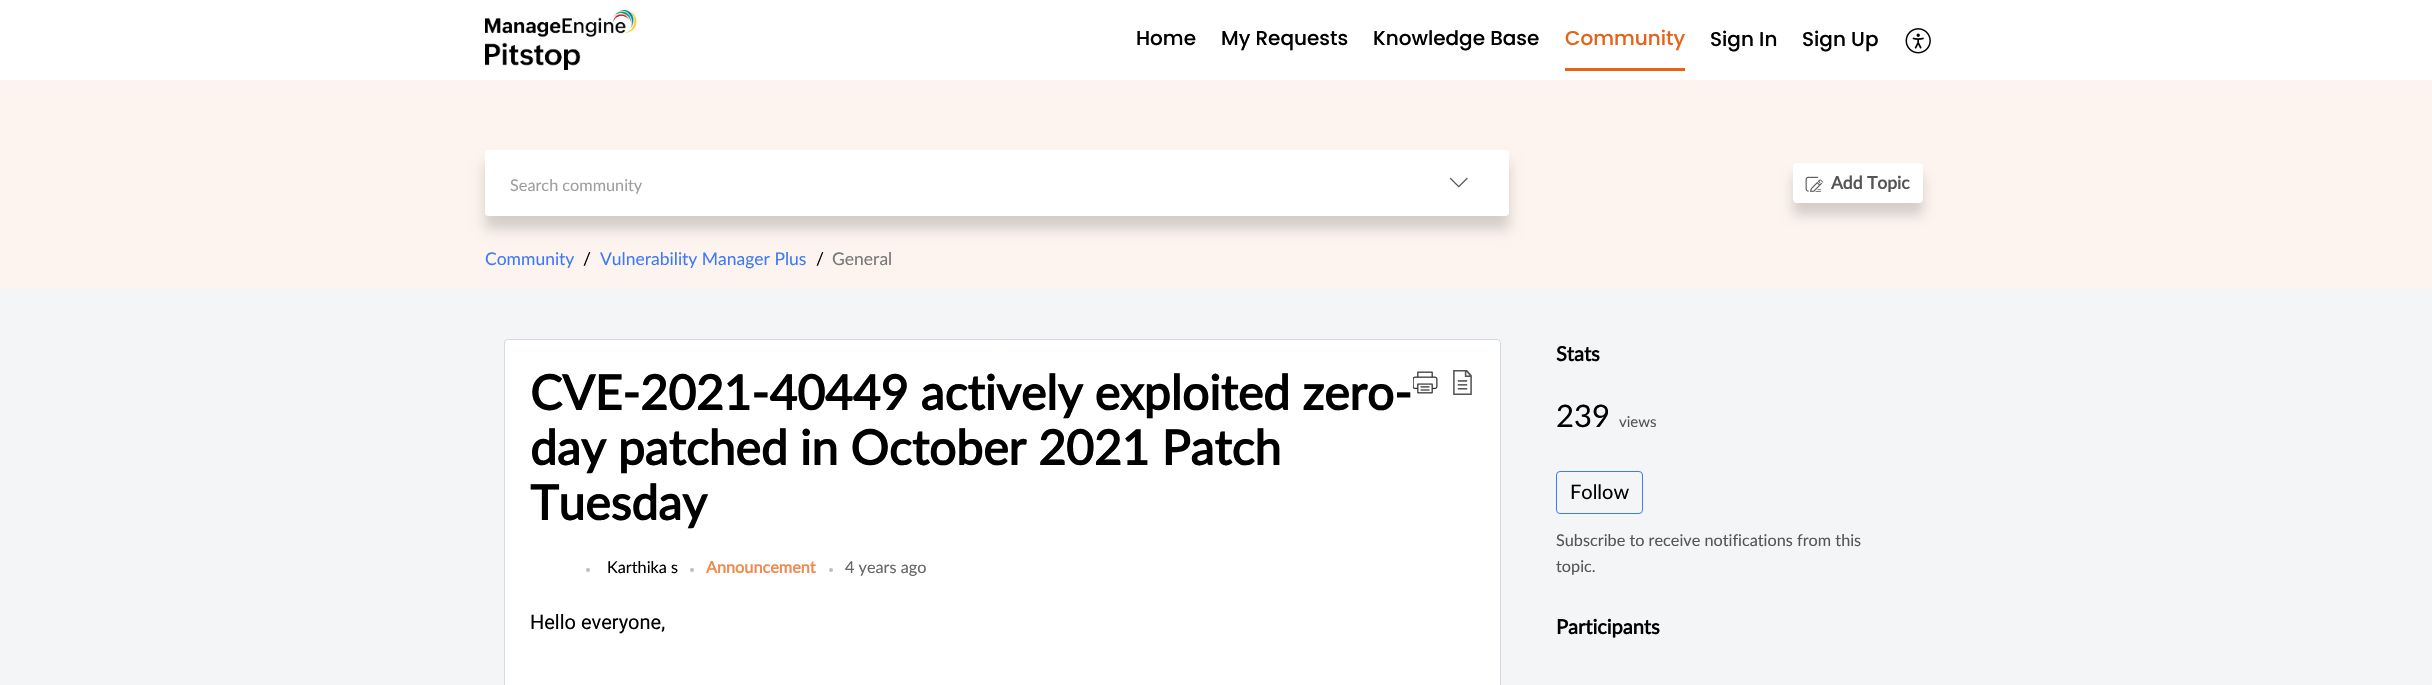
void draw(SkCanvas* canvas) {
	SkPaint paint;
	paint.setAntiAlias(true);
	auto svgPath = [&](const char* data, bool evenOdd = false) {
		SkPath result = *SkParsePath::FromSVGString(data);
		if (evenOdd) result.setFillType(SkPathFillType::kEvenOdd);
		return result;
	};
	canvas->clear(0xfff3f5f7);
	paint.setColor(0xffffffff);
	canvas->drawRect(SkRect::MakeXYWH(0, 0, 2432, 80), paint);
	canvas->drawImageRect(SkImages::DeferredFromEncodedData(SkData::MakeFromFileName("img1.png")), SkRect::MakeXYWH(485, 10, 152, 60), SkSamplingOptions());
	SkFont f1(fontMgr->matchFamilyStyle("Poppins", SkFontStyle(500, SkFontStyle::kNormal_Width, SkFontStyle::kUpright_Slant)), 20);
	f1.setSubpixel(true);
	paint.setColor(0xff000000);
	canvas->drawString("Home", 1136, 45, f1, paint);
	canvas->drawString("My Requests", 1221, 45, f1, paint);
	canvas->drawString("Knowledge Base", 1373, 45, f1, paint);
	paint.setColor(0xffe46317);
	canvas->drawRect(SkRect::MakeXYWH(1565, 68, 120, 3), paint);
	canvas->drawString("Community", 1565, 45, f1, paint);
	paint.setColor(0xff000000);
	canvas->drawString("Sign In", 1710, 46, f1, paint);
	canvas->drawString("Sign Up", 1802, 46, f1, paint);
	canvas->drawImageRect(SkImages::DeferredFromEncodedData(SkData::MakeFromFileName("img2.png")), SkRect::MakeXYWH(1905, 28, 26, 26), SkSamplingOptions());
	paint.setColor(0xfffdf4ef);
	canvas->drawRect(SkRect::MakeXYWH(0, 80, 2432, 209), paint);
	paint.setColor(0x29000000);
	paint.setMaskFilter(SkMaskFilter::MakeBlur(kNormal_SkBlurStyle, 6));
	canvas->drawRect(SkRect::MakeXYWH(485, 163, 1024, 66), paint);
	paint.setMaskFilter(nullptr);
	paint.setColor(0xffffffff);
	canvas->drawRoundRect(SkRect::MakeXYWH(485, 150, 1024, 66), 4, 4, paint);
	canvas->drawRoundRect(SkRect::MakeXYWH(485, 150, 924, 66), 4, 4, paint);
	SkFont f2(fontMgr->matchFamilyStyle("Lato", SkFontStyle::Normal()), 16.25);
	f2.setSubpixel(true);
	paint.setColor(0xff9e9e9e);
	canvas->drawString("Search community", 510, 191, f2, paint);
	paint.setColor(0x80ffffff);
	canvas->drawPath(svgPath("M1409 150H1505C1507 150 1509 152 1509 154V212C1509 214 1507 216 1505 216H1409Z"), paint);
	canvas->drawImageRect(SkImages::DeferredFromEncodedData(SkData::MakeFromFileName("img3.png")), SkRect::MakeXYWH(1449, 177, 19, 11), SkSamplingOptions());
	paint.setColor(0x29000000);
	paint.setMaskFilter(SkMaskFilter::MakeBlur(kNormal_SkBlurStyle, 6));
	canvas->drawRoundRect(SkRect::MakeXYWH(1793, 175, 130, 40), 4, 4, paint);
	paint.setMaskFilter(nullptr);
	paint.setColor(0xffffffff);
	canvas->drawRoundRect(SkRect::MakeXYWH(1793, 163, 130, 40), 4, 4, paint);
	canvas->drawImageRect(SkImages::DeferredFromEncodedData(SkData::MakeFromFileName("img4.png")), SkRect::MakeXYWH(1805, 176, 19, 16), SkSamplingOptions());
	SkFont f3(fontMgr->matchFamilyStyle("Lato", SkFontStyle::Bold()), 17.5);
	f3.setSubpixel(true);
	paint.setColor(0xff555555);
	canvas->drawString("Add Topic", 1831, 189, f3, paint);
	SkFont f4(fontMgr->matchFamilyStyle("Lato", SkFontStyle::Normal()), 17.5);
	f4.setSubpixel(true);
	paint.setColor(0xff3e7af7);
	canvas->drawString("Community", 485, 265, f4, paint);
	paint.setColor(0xff000000);
	canvas->drawString("/", 583, 265, f4, paint);
	paint.setColor(0xff3e7af7);
	canvas->drawString("Vulnerability Manager Plus", 600, 265, f4, paint);
	paint.setColor(0xff000000);
	canvas->drawString("/", 816, 265, f4, paint);
	paint.setColor(0xff777777);
	canvas->drawString("General", 832, 265, f4, paint);
	paint.setColor(0xffffffff);
	canvas->drawPath(svgPath("M508 339H1497C1499 339 1501 341 1501 343V685H504V343C504 341 506 339 508 339Z"), paint);
	paint.setStroke(true);
	paint.setStrokeWidth(1);
	paint.setColor(0xffd4dadf);
	canvas->drawRoundRect(SkRect::MakeXYWH(504.5, 339.5, 996, 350), 3.5, 3.5, paint);
	SkFont f5(fontMgr->matchFamilyStyle("Lato", SkFontStyle::Bold()), 48);
	f5.setSubpixel(true);
	paint.setStroke(false);
	paint.setColor(0xff000000);
	canvas->drawString("CVE-2021-40449 actively exploited zero-", 530, 410, f5, paint);
	canvas->drawString("day patched in October 2021 Patch", 530, 465, f5, paint);
	canvas->drawString("Tuesday", 530, 520, f5, paint);
	canvas->drawImageRect(SkImages::DeferredFromEncodedData(SkData::MakeFromFileName("img5.png")), SkRect::MakeXYWH(1413, 371, 25, 23), SkSamplingOptions());
	canvas->drawImageRect(SkImages::DeferredFromEncodedData(SkData::MakeFromFileName("img6.png")), SkRect::MakeXYWH(1453, 370, 19, 25), SkSamplingOptions());
	paint.setColor(0xffbdbdbd);
	canvas->drawCircle(588, 570, 2, paint);
	paint.setColor(0xff000000);
	canvas->drawString("Karthika s", 607, 573, f2, paint);
	paint.setColor(0xffbdbdbd);
	canvas->drawCircle(692, 570, 2, paint);
	SkFont f6(fontMgr->matchFamilyStyle("Lato", SkFontStyle::Bold()), 16.25);
	f6.setSubpixel(true);
	paint.setColor(0xffef8b50);
	canvas->drawString("Announcement", 706, 573, f6, paint);
	paint.setColor(0xffbdbdbd);
	canvas->drawCircle(831, 570, 2, paint);
	paint.setColor(0xff666666);
	canvas->drawString("4 years ago", 845, 573, f2, paint);
	SkFont f7(fontMgr->matchFamilyStyle("Roboto", SkFontStyle::Normal()), 20);
	f7.setSubpixel(true);
	paint.setColor(0xff000000);
	canvas->drawString("Hello everyone,", 530, 629, f7, paint);
	SkFont f8(fontMgr->matchFamilyStyle("Lato", SkFontStyle::Bold()), 20);
	f8.setSubpixel(true);
	canvas->drawString("Stats", 1556, 361, f8, paint);
	SkFont f9(fontMgr->matchFamilyStyle("Lato", SkFontStyle::Normal()), 31);
	f9.setSubpixel(true);
	canvas->drawString("239", 1556, 427, f9, paint);
	SkFont f10(fontMgr->matchFamilyStyle("Lato", SkFontStyle::Normal()), 15);
	f10.setSubpixel(true);
	paint.setColor(0xff555555);
	canvas->drawString("views", 1619, 427, f10, paint);
	paint.setStroke(true);
	paint.setColor(0xff3e7af7);
	canvas->drawRoundRect(SkRect::MakeXYWH(1556.5, 471.5, 86, 42), 3.5, 3.5, paint);
	SkFont f11(fontMgr->matchFamilyStyle("Lato", SkFontStyle::Normal()), 20);
	f11.setSubpixel(true);
	paint.setStroke(false);
	paint.setColor(0xff000000);
	canvas->drawString("Follow", 1570, 499, f11, paint);
	paint.setColor(0xff555555);
	canvas->drawString("Subscribe to receive notifications from this", 1556, 546, f2, paint);
	canvas->drawString("topic.", 1556, 572, f2, paint);
	paint.setColor(0xff000000);
	canvas->drawString("Participants", 1556, 634, f8, paint);
}
